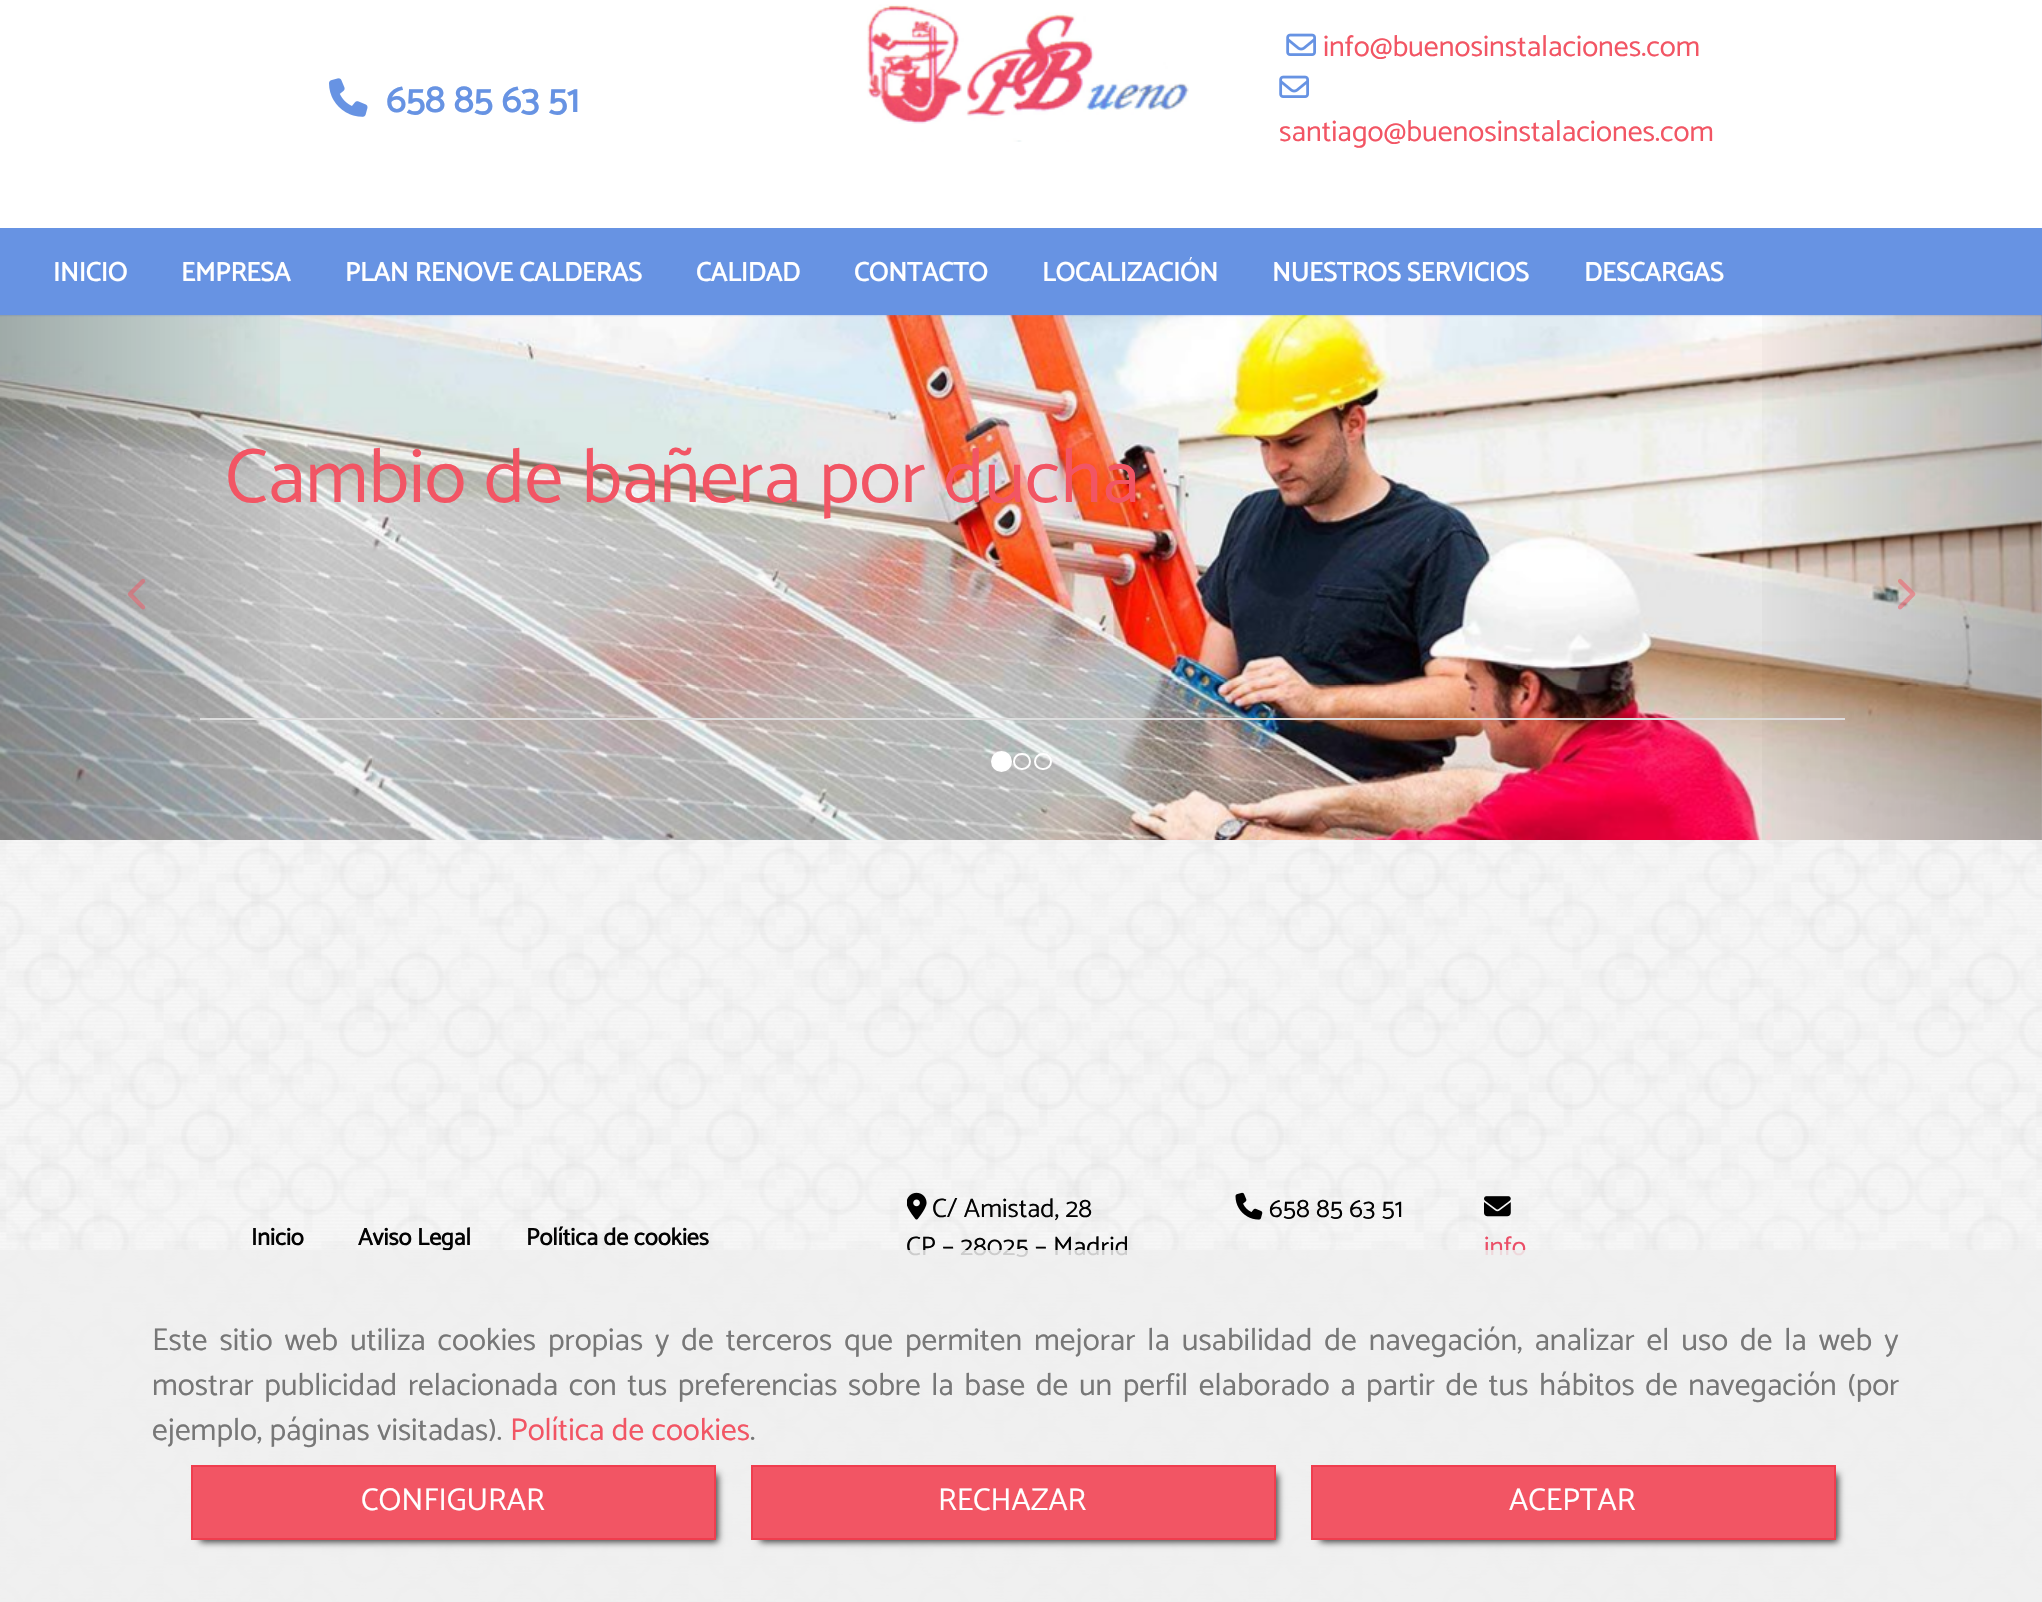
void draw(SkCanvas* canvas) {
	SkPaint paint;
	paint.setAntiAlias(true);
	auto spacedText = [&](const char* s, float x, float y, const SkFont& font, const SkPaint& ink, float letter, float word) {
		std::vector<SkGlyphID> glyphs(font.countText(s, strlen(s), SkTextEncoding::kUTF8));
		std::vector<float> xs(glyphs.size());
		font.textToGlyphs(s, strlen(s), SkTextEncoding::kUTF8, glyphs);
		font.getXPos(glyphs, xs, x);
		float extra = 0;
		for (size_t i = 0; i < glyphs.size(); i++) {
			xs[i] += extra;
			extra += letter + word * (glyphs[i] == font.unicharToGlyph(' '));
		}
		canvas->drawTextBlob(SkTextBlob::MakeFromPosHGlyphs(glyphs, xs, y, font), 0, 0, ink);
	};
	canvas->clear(0xffffffff);
	canvas->drawImageRect(SkImages::DeferredFromEncodedData(SkData::MakeFromFileName("img1.png")), SkRect::MakeXYWH(0, 345, 2042, 1257), SkSamplingOptions());
	canvas->drawImageRect(SkImages::DeferredFromEncodedData(SkData::MakeFromFileName("img2.png")), SkRect::MakeXYWH(329, 78, 39, 39), SkSamplingOptions());
	SkFont f1(fontMgr->matchFamilyStyle("Catamaran", SkFontStyle::Bold()), 38.5);
	f1.setSubpixel(true);
	paint.setColor(0xff6793e3);
	canvas->drawString("658 85 63 51", 386, 112, f1, paint);
	canvas->drawImageRect(SkImages::DeferredFromEncodedData(SkData::MakeFromFileName("img3.png")), SkRect::MakeXYWH(867, 4, 322, 138), SkSamplingOptions());
	canvas->drawImageRect(SkImages::DeferredFromEncodedData(SkData::MakeFromFileName("img4.png")), SkRect::MakeXYWH(1286, 33, 30, 23), SkSamplingOptions());
	SkFont f2(fontMgr->matchFamilyStyle("Catamaran", SkFontStyle(100, SkFontStyle::kNormal_Width, SkFontStyle::kUpright_Slant)), 29.75);
	f2.setSubpixel(true);
	paint.setColor(0xfff25564);
	canvas->drawString("info@buenosinstalaciones.com", 1323, 56, f2, paint);
	canvas->drawImageRect(SkImages::DeferredFromEncodedData(SkData::MakeFromFileName("img4.png")), SkRect::MakeXYWH(1279, 75, 30, 23), SkSamplingOptions());
	canvas->drawString("santiago@buenosinstalaciones.com", 1279, 141, f2, paint);
	paint.setColor(0xff6793e3);
	canvas->drawRect(SkRect::MakeXYWH(0, 228, 2042, 117), paint);
	SkFont f3(fontMgr->matchFamilyStyle("Catamaran", SkFontStyle::Bold()), 26.75);
	f3.setSubpixel(true);
	paint.setColor(0xffffffff);
	canvas->drawString("INICIO", 53, 281, f3, paint);
	canvas->drawString("EMPRESA", 181, 281, f3, paint);
	canvas->drawString("PLAN RENOVE CALDERAS", 345, 281, f3, paint);
	canvas->drawString("CALIDAD", 696, 281, f3, paint);
	canvas->drawString("CONTACTO", 854, 281, f3, paint);
	canvas->drawString("LOCALIZACIÓN", 1042, 281, f3, paint);
	canvas->drawString("NUESTROS SERVICIOS", 1272, 281, f3, paint);
	canvas->drawString("DESCARGAS", 1584, 281, f3, paint);
	canvas->drawImageRect(SkImages::DeferredFromEncodedData(SkData::MakeFromFileName("img5.png")), SkRect::MakeXYWH(0, 315, 2042, 525), SkSamplingOptions());
	{
		const SkColor colors[] = {0x40000000, 0x00000000};
		const float stops[] = {0, 1};
		const SkPoint ends[] = {{0, 578}, {306, 578}};
		paint.setShader(SkGradientShader::MakeLinear(ends, colors, stops, 2, SkTileMode::kClamp));
		paint.setAlpha(255);
	}
	canvas->drawRect(SkRect::MakeXYWH(0, 315, 280, 525), paint);
	canvas->drawImageRect(SkImages::DeferredFromEncodedData(SkData::MakeFromFileName("img6.png")), SkRect::MakeXYWH(127, 578, 19, 32), SkSamplingOptions());
	paint.setShader(nullptr);
	paint.setColor(0xffffffff);
	canvas->drawCircle(1001.5, 761.5, 9.5, paint);
	paint.setStroke(true);
	paint.setStrokeWidth(2);
	canvas->drawCircle(1001.5, 761.5, 9.5, paint);
	canvas->drawRoundRect(SkRect::MakeXYWH(1014, 754, 16, 15), 7.5, 7.5, paint);
	canvas->drawRoundRect(SkRect::MakeXYWH(1035, 754, 16, 15), 7.5, 7.5, paint);
	paint.setStroke(false);
	{
		const SkColor colors[] = {0x00000000, 0x40000000};
		const float stops[] = {0, 1};
		const SkPoint ends[] = {{1736, 578}, {2042, 578}};
		paint.setShader(SkGradientShader::MakeLinear(ends, colors, stops, 2, SkTileMode::kClamp));
		paint.setAlpha(255);
	}
	canvas->drawRect(SkRect::MakeXYWH(1762, 315, 280, 525), paint);
	canvas->drawImageRect(SkImages::DeferredFromEncodedData(SkData::MakeFromFileName("img7.png")), SkRect::MakeXYWH(1898, 578, 18, 32), SkSamplingOptions());
	SkFont f4(fontMgr->matchFamilyStyle("Catamaran", SkFontStyle(100, SkFontStyle::kNormal_Width, SkFontStyle::kUpright_Slant)), 77);
	f4.setSubpixel(true);
	paint.setShader(nullptr);
	paint.setColor(0xfff25564);
	canvas->drawString("Cambio de bañera por ducha", 225, 502, f4, paint);
	paint.setColor(0xffdddddd);
	canvas->drawRect(SkRect::MakeXYWH(200, 718, 1645, 2), paint);
	SkFont f5(fontMgr->matchFamilyStyle("Catamaran", SkFontStyle::Bold()), 24);
	f5.setSubpixel(true);
	paint.setColor(0xff030303);
	canvas->drawString("Inicio", 251, 1245, f5, paint);
	canvas->drawString("Aviso Legal", 358, 1245, f5, paint);
	canvas->drawString("Política de cookies", 526, 1245, f5, paint);
	canvas->drawImageRect(SkImages::DeferredFromEncodedData(SkData::MakeFromFileName("img8.png")), SkRect::MakeXYWH(907, 1192, 20, 28), SkSamplingOptions());
	SkFont f6(fontMgr->matchFamilyStyle("Catamaran", SkFontStyle(100, SkFontStyle::kNormal_Width, SkFontStyle::kUpright_Slant)), 26.75);
	f6.setSubpixel(true);
	canvas->drawString("C/ Amistad, 28", 932, 1217, f6, paint);
	canvas->drawString("CP – 28025 – Madrid", 906, 1255, f6, paint);
	canvas->drawImageRect(SkImages::DeferredFromEncodedData(SkData::MakeFromFileName("img9.png")), SkRect::MakeXYWH(1235, 1192, 28, 28), SkSamplingOptions());
	canvas->drawString("658 85 63 51", 1269, 1217, f6, paint);
	canvas->drawImageRect(SkImages::DeferredFromEncodedData(SkData::MakeFromFileName("img10.png")), SkRect::MakeXYWH(1484, 1196, 27, 21), SkSamplingOptions());
	paint.setColor(0xffeb4e67);
	canvas->drawString("info", 1484, 1255, f6, paint);
	paint.setColor(0xd9eeeeee);
	canvas->drawRect(SkRect::MakeXYWH(0, 1250, 2042, 352), paint);
	SkFont f7(fontMgr->matchFamilyStyle("Catamaran", SkFontStyle(100, SkFontStyle::kNormal_Width, SkFontStyle::kUpright_Slant)), 31.5);
	f7.setSubpixel(true);
	paint.setColor(0xff777777);
	spacedText("Este sitio web utiliza cookies propias y de terceros que permiten mejorar la usabilidad de navegación, analizar el uso de la web y", 152, 1350, f7, paint, 0, 4.6);
	spacedText("mostrar publicidad relacionada con tus preferencias sobre la base de un perfil elaborado a partir de tus hábitos de navegación (por", 152, 1395, f7, paint, 0, 3.25);
	canvas->drawString("ejemplo, páginas visitadas).", 152, 1440, f7, paint);
	paint.setColor(0xfff25564);
	canvas->drawString("Política de cookies", 510, 1440, f7, paint);
	paint.setColor(0xff777777);
	canvas->drawString(".", 750, 1440, f7, paint);
	paint.setColor(0xbf000000);
	paint.setMaskFilter(SkMaskFilter::MakeBlur(kNormal_SkBlurStyle, 3.5));
	canvas->drawRect(SkRect::MakeXYWH(200, 1474, 518, 68), paint);
	paint.setMaskFilter(nullptr);
	paint.setColor(0xfff25564);
	canvas->drawRect(SkRect::MakeXYWH(192, 1466, 523, 73), paint);
	paint.setStroke(true);
	paint.setColor(0xfff03d4e);
	canvas->drawRect(SkRect::MakeXYWH(192, 1466, 523, 73), paint);
	paint.setStroke(false);
	paint.setColor(0xffffffff);
	canvas->drawString("CONFIGURAR", 361, 1510, f7, paint);
	paint.setColor(0xbf000000);
	paint.setMaskFilter(SkMaskFilter::MakeBlur(kNormal_SkBlurStyle, 3.5));
	canvas->drawRect(SkRect::MakeXYWH(760, 1474, 518, 68), paint);
	paint.setMaskFilter(nullptr);
	paint.setColor(0xfff25564);
	canvas->drawRect(SkRect::MakeXYWH(752, 1466, 523, 73), paint);
	paint.setStroke(true);
	paint.setColor(0xfff03d4e);
	canvas->drawRect(SkRect::MakeXYWH(752, 1466, 523, 73), paint);
	paint.setStroke(false);
	paint.setColor(0xffffffff);
	canvas->drawString("RECHAZAR", 938, 1510, f7, paint);
	paint.setColor(0xbf000000);
	paint.setMaskFilter(SkMaskFilter::MakeBlur(kNormal_SkBlurStyle, 3.5));
	canvas->drawRect(SkRect::MakeXYWH(1320, 1474, 518, 68), paint);
	paint.setMaskFilter(nullptr);
	paint.setColor(0xfff25564);
	canvas->drawRect(SkRect::MakeXYWH(1312, 1466, 523, 73), paint);
	paint.setStroke(true);
	paint.setColor(0xfff03d4e);
	canvas->drawRect(SkRect::MakeXYWH(1312, 1466, 523, 73), paint);
	paint.setStroke(false);
	paint.setColor(0xffffffff);
	canvas->drawString("ACEPTAR", 1509, 1510, f7, paint);
}
